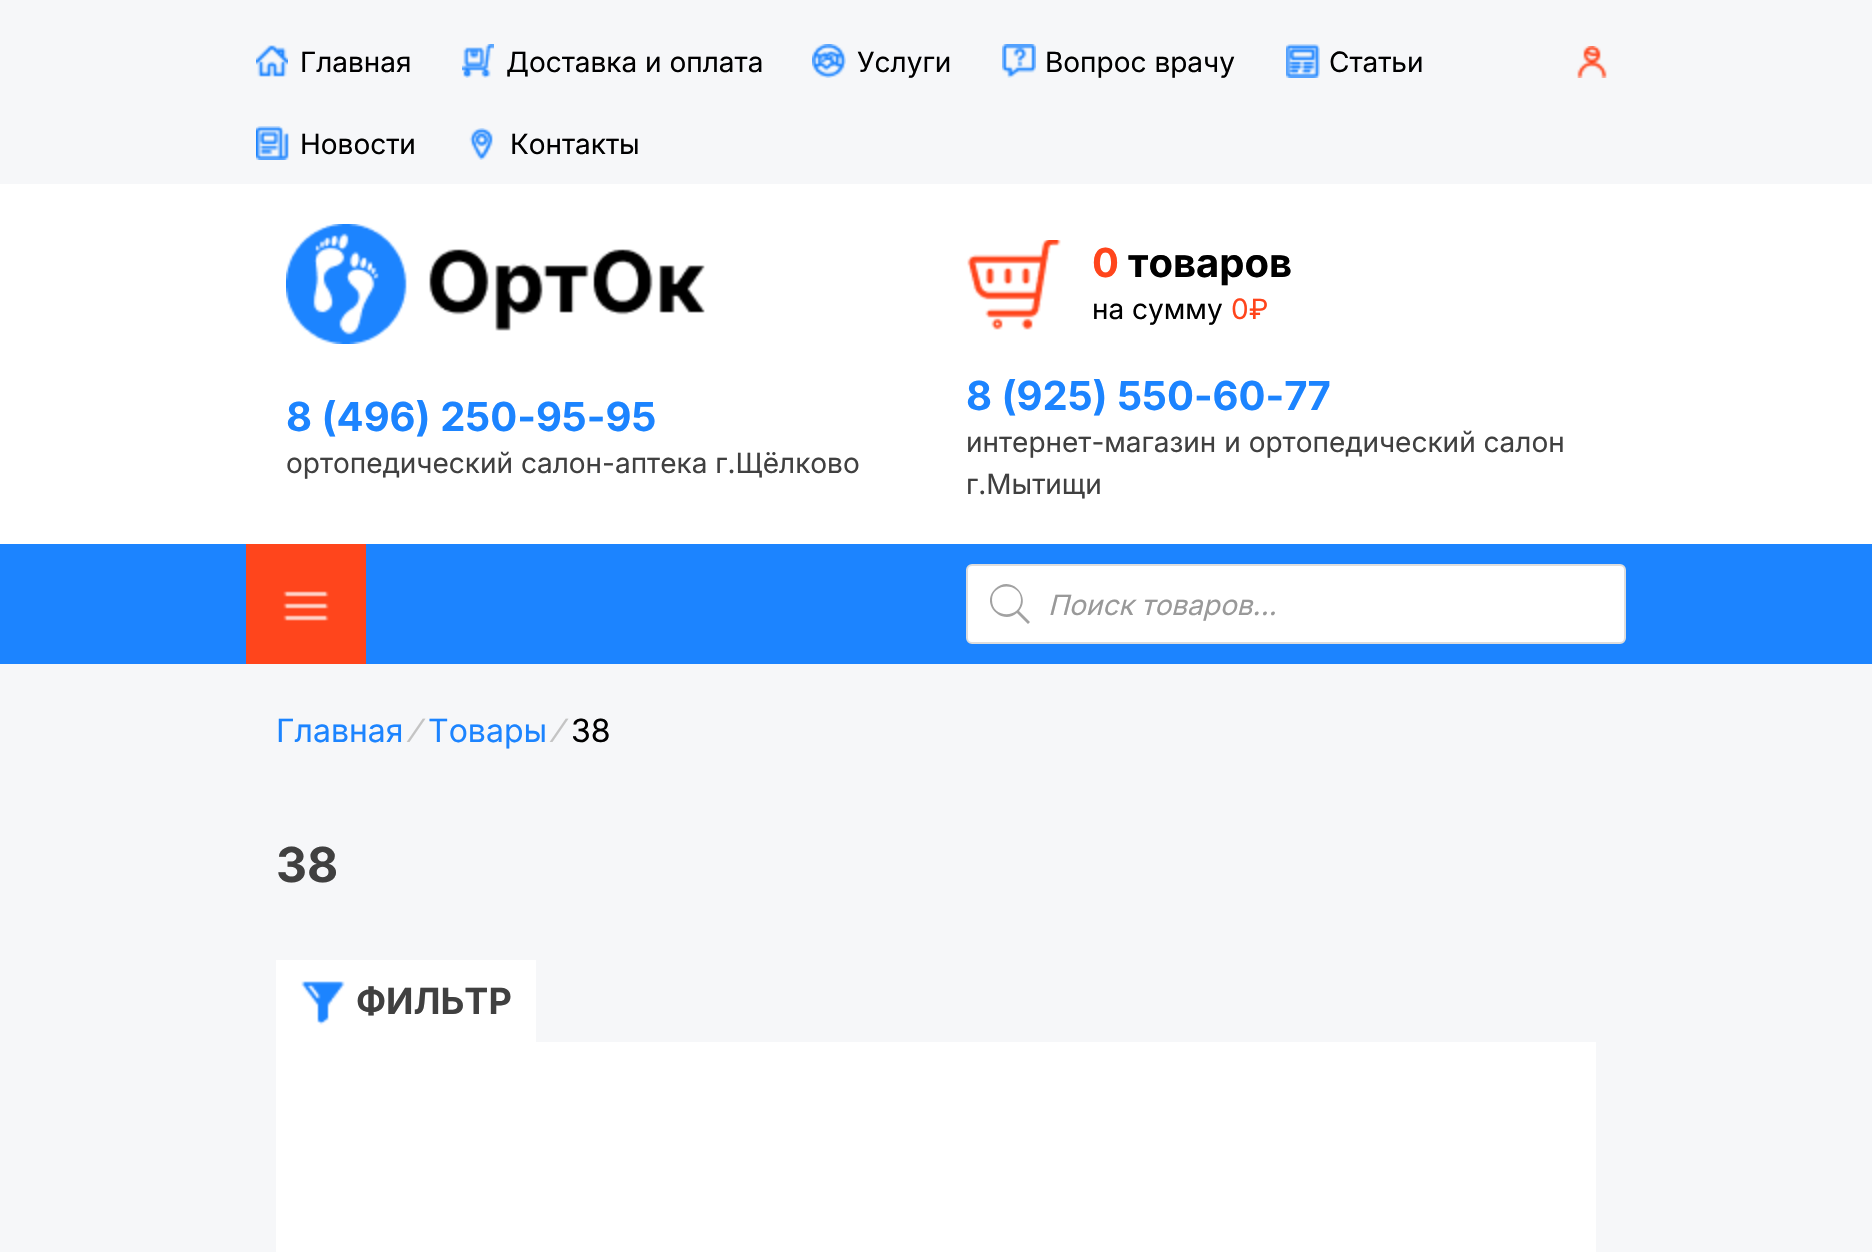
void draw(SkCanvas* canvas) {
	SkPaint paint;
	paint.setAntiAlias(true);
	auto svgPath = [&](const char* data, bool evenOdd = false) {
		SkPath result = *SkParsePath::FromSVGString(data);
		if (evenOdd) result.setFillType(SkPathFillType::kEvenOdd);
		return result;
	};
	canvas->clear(0xfff6f7f9);
	canvas->drawImageRect(SkImages::DeferredFromEncodedData(SkData::MakeFromFileName("img1.png")), SkRect::MakeXYWH(256, 45, 32, 32), SkSamplingOptions());
	SkFont f1(fontMgr->matchFamilyStyle("Inter", SkFontStyle::Normal()), 28);
	f1.setSubpixel(true);
	paint.setColor(0xff000000);
	canvas->drawString("Главная", 300, 72, f1, paint);
	canvas->drawImageRect(SkImages::DeferredFromEncodedData(SkData::MakeFromFileName("img2.png")), SkRect::MakeXYWH(462, 44, 32, 34), SkSamplingOptions());
	canvas->drawString("Доставка и оплата", 506, 72, f1, paint);
	canvas->drawImageRect(SkImages::DeferredFromEncodedData(SkData::MakeFromFileName("img3.png")), SkRect::MakeXYWH(812, 44, 34, 34), SkSamplingOptions());
	canvas->drawString("Услуги", 857, 72, f1, paint);
	canvas->drawImageRect(SkImages::DeferredFromEncodedData(SkData::MakeFromFileName("img4.png")), SkRect::MakeXYWH(1002, 44, 34, 34), SkSamplingOptions());
	canvas->drawString("Вопрос врачу", 1045, 72, f1, paint);
	canvas->drawImageRect(SkImages::DeferredFromEncodedData(SkData::MakeFromFileName("img5.png")), SkRect::MakeXYWH(1286, 44, 34, 34), SkSamplingOptions());
	canvas->drawString("Статьи", 1329, 72, f1, paint);
	canvas->drawImageRect(SkImages::DeferredFromEncodedData(SkData::MakeFromFileName("img6.png")), SkRect::MakeXYWH(256, 126, 33, 34), SkSamplingOptions());
	canvas->drawString("Новости", 300, 154, f1, paint);
	canvas->drawImageRect(SkImages::DeferredFromEncodedData(SkData::MakeFromFileName("img7.png")), SkRect::MakeXYWH(469, 128, 24, 32), SkSamplingOptions());
	canvas->drawString("Контакты", 510, 154, f1, paint);
	canvas->drawImageRect(SkImages::DeferredFromEncodedData(SkData::MakeFromFileName("img8.png")), SkRect::MakeXYWH(1577, 46, 30, 32), SkSamplingOptions());
	paint.setColor(0xffffffff);
	canvas->drawRect(SkRect::MakeXYWH(0, 184, 1872, 360), paint);
	canvas->drawImageRect(SkImages::DeferredFromEncodedData(SkData::MakeFromFileName("img9.png")), SkRect::MakeXYWH(286, 224, 419, 120), SkSamplingOptions());
	canvas->drawImageRect(SkImages::DeferredFromEncodedData(SkData::MakeFromFileName("img10.png")), SkRect::MakeXYWH(967, 240, 94, 90), SkSamplingOptions());
	SkFont f2(fontMgr->matchFamilyStyle("Inter", SkFontStyle::Bold()), 40);
	f2.setSubpixel(true);
	paint.setColor(0xffff451c);
	canvas->drawString("0", 1092, 277, f2, paint);
	paint.setColor(0xff000000);
	canvas->drawString("товаров", 1128, 277, f2, paint);
	canvas->drawString("на сумму", 1092, 319, f1, paint);
	paint.setColor(0xffff451c);
	canvas->drawString("0₽", 1231, 319, f1, paint);
	paint.setColor(0xff1c84ff);
	canvas->drawString("8 (496) 250-95-95", 286, 431, f2, paint);
	paint.setColor(0xff404040);
	canvas->drawString("ортопедический салон-аптека г.Щёлково", 286, 473, f1, paint);
	paint.setColor(0xff1c84ff);
	canvas->drawString("8 (925) 550-60-77", 966, 410, f2, paint);
	paint.setColor(0xff404040);
	canvas->drawString("интернет-магазин и ортопедический салон", 966, 452, f1, paint);
	canvas->drawString("г.Мытищи", 966, 494, f1, paint);
	paint.setColor(0xff1c84ff);
	canvas->drawRect(SkRect::MakeXYWH(0, 544, 1872, 120), paint);
	paint.setColor(0xffff451c);
	canvas->drawRect(SkRect::MakeXYWH(246, 544, 120, 120), paint);
	canvas->drawImageRect(SkImages::DeferredFromEncodedData(SkData::MakeFromFileName("img11.png")), SkRect::MakeXYWH(283, 591, 46, 30), SkSamplingOptions());
	paint.setColor(0xffffffff);
	canvas->drawRoundRect(SkRect::MakeXYWH(967, 565, 658, 78), 5, 5, paint);
	paint.setStroke(true);
	paint.setStrokeWidth(2);
	paint.setColor(0xffdddddd);
	canvas->drawRoundRect(SkRect::MakeXYWH(967, 565, 658, 78), 5, 5, paint);
	paint.setStroke(false);
	paint.setColor(0xffa2a2a2);
	canvas->drawPath(svgPath("M1030 622L1019 611C1032 596 1010 574 995 589C980 604 1002 626 1017 613L1028 624ZM992 600C992 582 1021 582 1021 600C1021 619 992 619 992 600Z"), paint);
	SkFont f3(fontMgr->matchFamilyStyle("Inter", SkFontStyle::Italic()), 28);
	f3.setSubpixel(true);
	paint.setColor(0xff999999);
	canvas->drawString("Поиск товаров...", 1048, 615, f3, paint);
	SkFont f4(fontMgr->matchFamilyStyle("Inter", SkFontStyle::Normal()), 32);
	f4.setSubpixel(true);
	paint.setColor(0xff1c84ff);
	canvas->drawString("Главная", 276, 742, f4, paint);
	paint.setColor(0xffc4c4c4);
	canvas->drawString("⁄", 413, 742, f4, paint);
	paint.setColor(0xff1c84ff);
	canvas->drawString("Товары", 428, 742, f4, paint);
	paint.setColor(0xffc4c4c4);
	canvas->drawString("⁄", 556, 742, f4, paint);
	paint.setColor(0xff000000);
	canvas->drawString("38", 571, 742, f4, paint);
	SkFont f5(fontMgr->matchFamilyStyle("Inter", SkFontStyle::Bold()), 48);
	f5.setSubpixel(true);
	paint.setColor(0xff404040);
	canvas->drawString("38", 276, 882, f5, paint);
	paint.setColor(0xffffffff);
	canvas->drawRect(SkRect::MakeXYWH(276, 960, 260, 82), paint);
	canvas->drawImageRect(SkImages::DeferredFromEncodedData(SkData::MakeFromFileName("img12.png")), SkRect::MakeXYWH(301, 981, 44, 44), SkSamplingOptions());
	SkFont f6(fontMgr->matchFamilyStyle("Inter", SkFontStyle::Bold()), 36);
	f6.setSubpixel(true);
	paint.setColor(0xff404040);
	canvas->drawString("ФИЛЬТР", 356, 1014, f6, paint);
	paint.setColor(0xffffffff);
	canvas->drawRect(SkRect::MakeXYWH(276, 1042, 1320, 210), paint);
}
